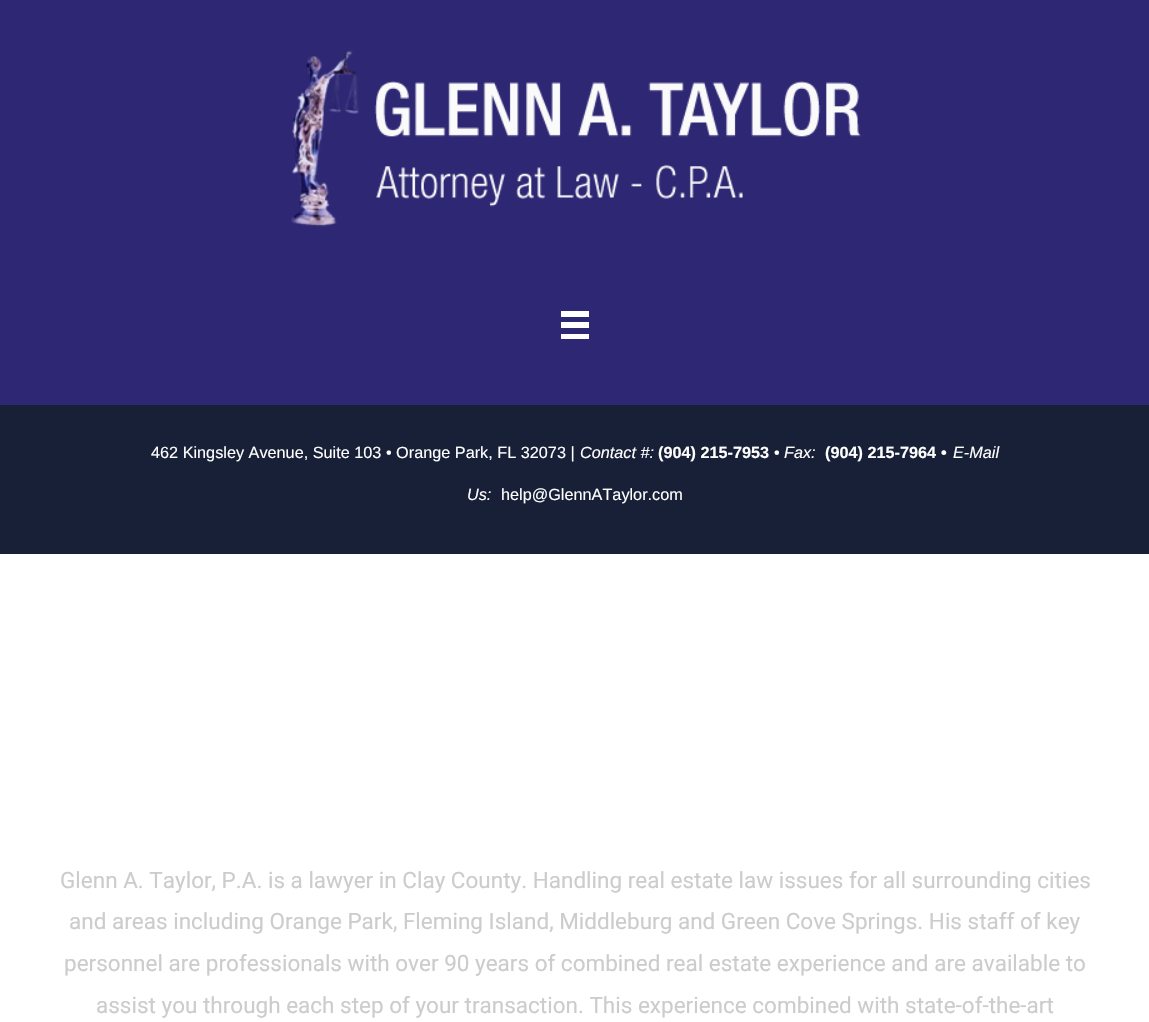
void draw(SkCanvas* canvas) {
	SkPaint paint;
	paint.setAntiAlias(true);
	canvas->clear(0xffffffff);
	paint.setColor(0xff2e2774);
	canvas->drawRect(SkRect::MakeXYWH(0, 0, 1149, 405), paint);
	canvas->drawImageRect(SkImages::DeferredFromEncodedData(SkData::MakeFromFileName("img1.png")), SkRect::MakeXYWH(291, 50, 570, 177), SkSamplingOptions());
	paint.setColor(0xffffffff);
	canvas->drawRect(SkRect::MakeXYWH(561, 311, 28, 6), paint);
	canvas->drawRect(SkRect::MakeXYWH(561, 322, 28, 6), paint);
	canvas->drawRect(SkRect::MakeXYWH(561, 334, 28, 5), paint);
	paint.setColor(0xff182038);
	canvas->drawRect(SkRect::MakeXYWH(0, 405, 1149, 149), paint);
	SkFont f1(fontMgr->matchFamilyStyle("Liberation Sans", SkFontStyle::Normal()), 16.25);
	f1.setSubpixel(true);
	paint.setColor(0xffffffff);
	canvas->drawString("462 Kingsley Avenue, Suite 103 • Orange Park, FL 32073 |", 151, 458, f1, paint);
	SkFont f2(fontMgr->matchFamilyStyle("Liberation Sans", SkFontStyle::Italic()), 16.25);
	f2.setSubpixel(true);
	canvas->drawString("Contact #:", 580, 458, f2, paint);
	SkFont f3(fontMgr->matchFamilyStyle("Liberation Sans", SkFontStyle::Bold()), 16.25);
	f3.setSubpixel(true);
	canvas->drawString("(904) 215-7953", 658, 458, f3, paint);
	canvas->drawString("•", 774, 458, f1, paint);
	canvas->drawString("Fax:", 784, 458, f2, paint);
	canvas->drawString("(904) 215-7964", 825, 458, f3, paint);
	canvas->drawString("•", 941, 458, f3, paint);
	canvas->drawString("E-Mail", 953, 458, f2, paint);
	canvas->drawString("Us:", 467, 500, f2, paint);
	canvas->drawString("help@GlennATaylor.com", 501, 500, f1, paint);
	SkFont f4(fontMgr->matchFamilyStyle("Roboto", SkFontStyle::Normal()), 22.5);
	f4.setSubpixel(true);
	paint.setColor(0xffcccccc);
	canvas->drawString("Glenn A. Taylor, P.A. is a lawyer in Clay County. Handling real estate law issues for all surrounding cities", 60, 888, f4, paint);
	canvas->drawString("and areas including Orange Park, Fleming Island, Middleburg and Green Cove Springs. His staff of key", 69, 929, f4, paint);
	canvas->drawString("personnel are professionals with over 90 years of combined real estate experience and are available to", 64, 971, f4, paint);
	canvas->drawString("assist you through each step of your transaction. This experience combined with state-of-the-art", 96, 1013, f4, paint);
}
